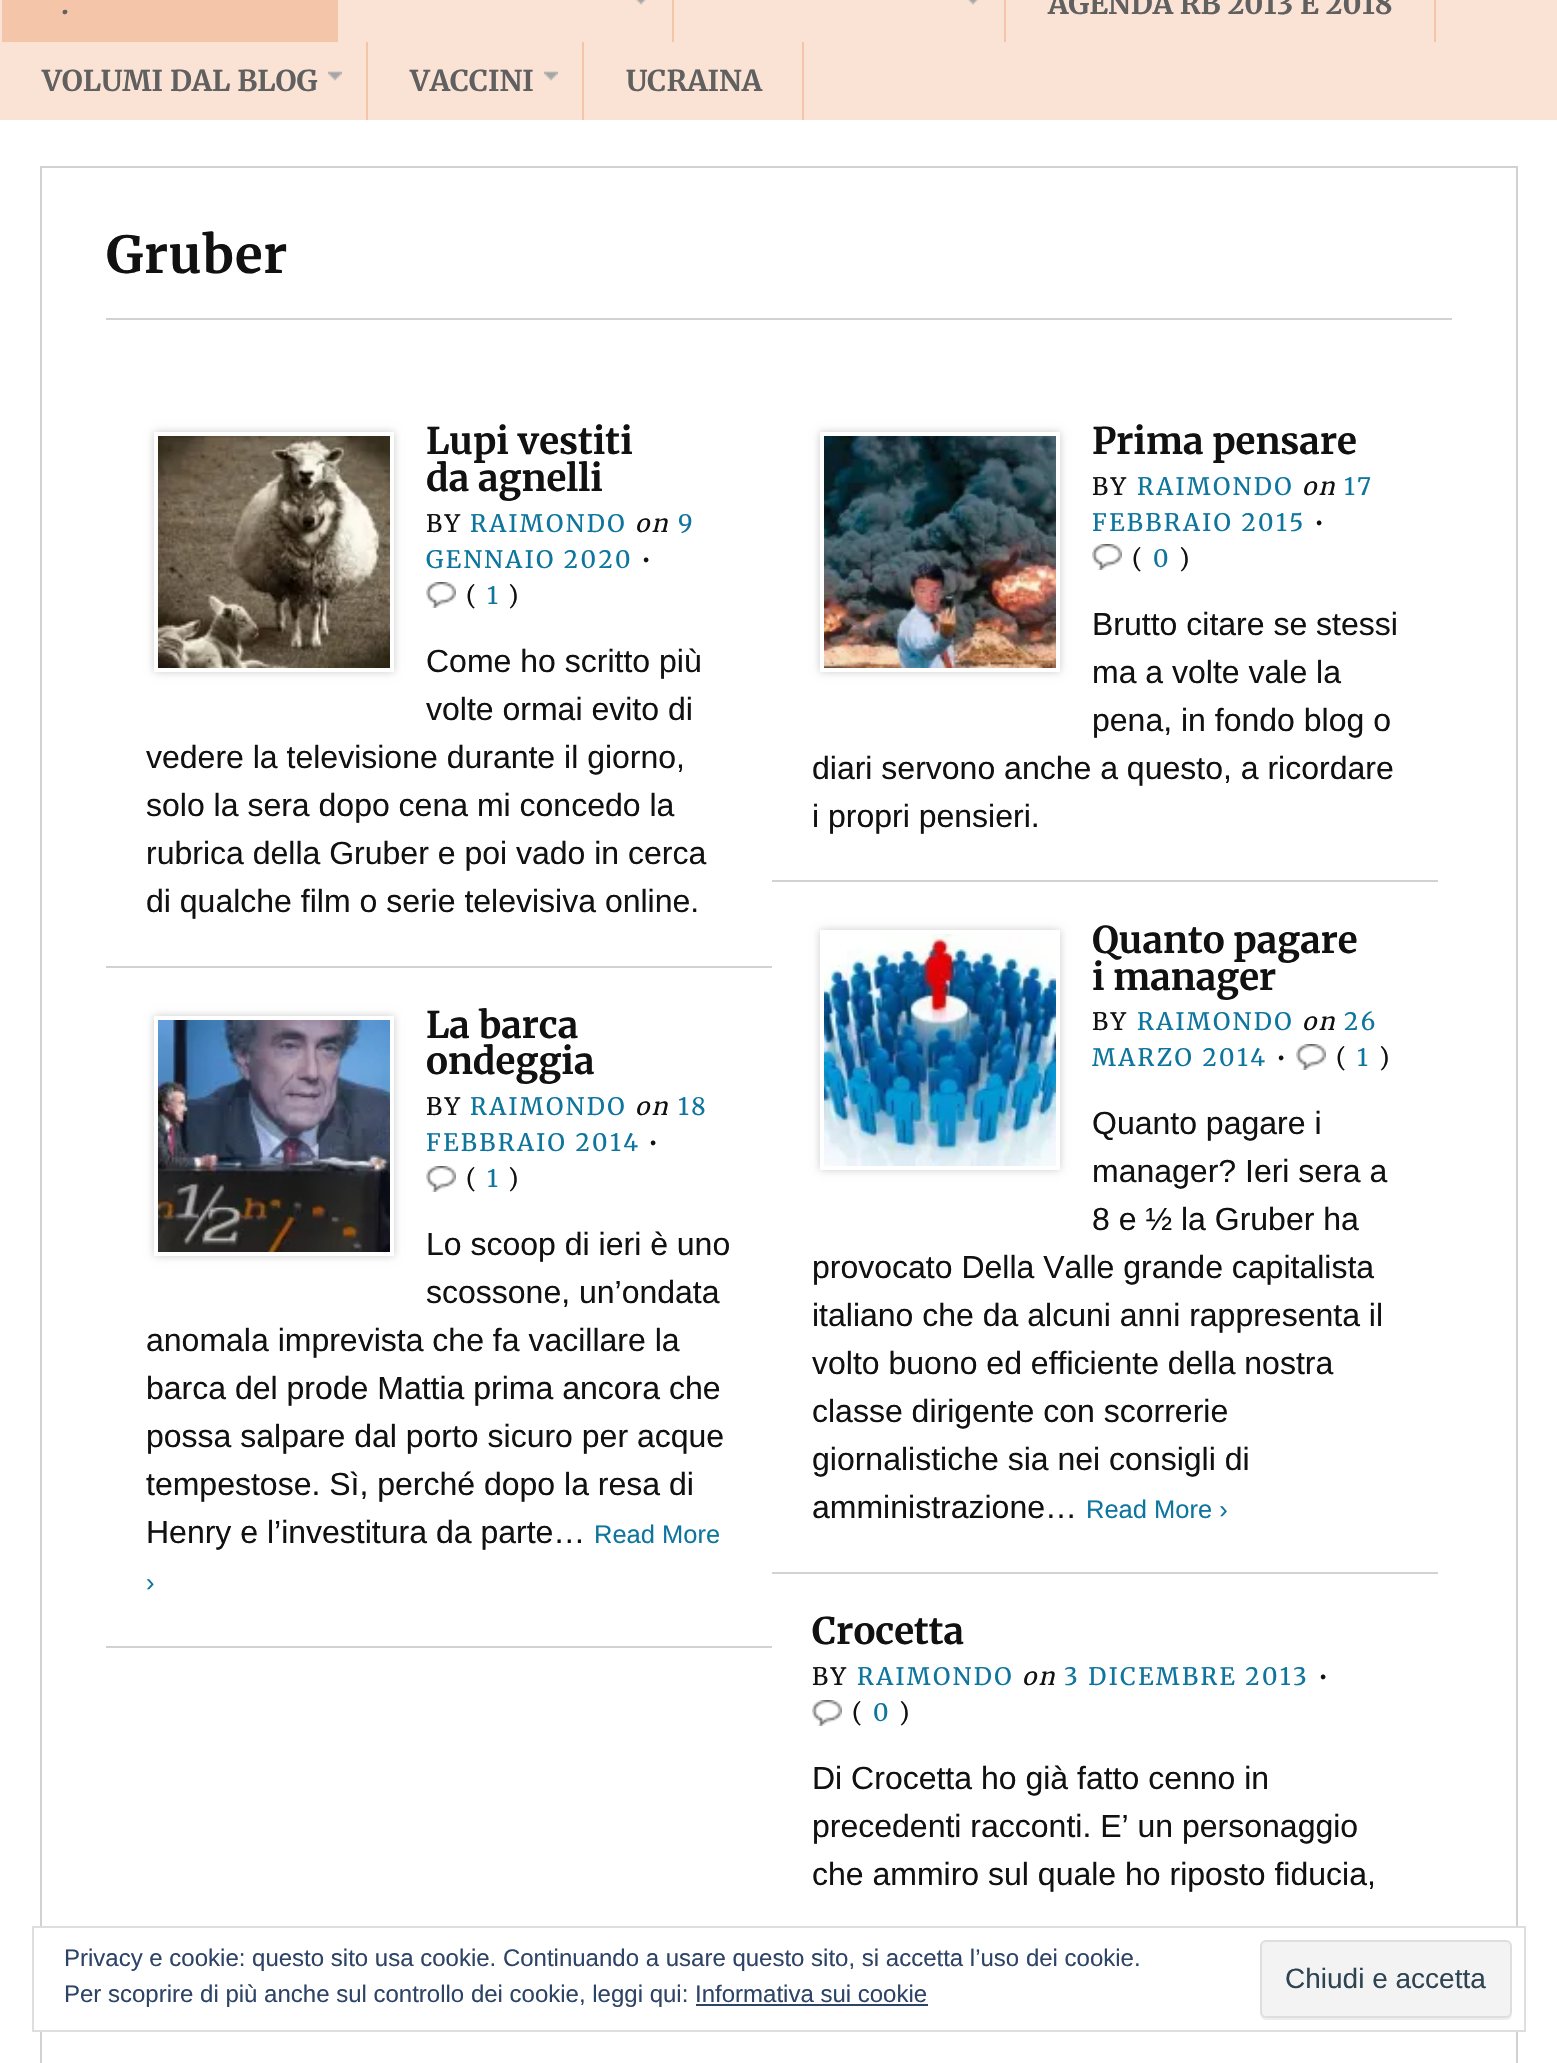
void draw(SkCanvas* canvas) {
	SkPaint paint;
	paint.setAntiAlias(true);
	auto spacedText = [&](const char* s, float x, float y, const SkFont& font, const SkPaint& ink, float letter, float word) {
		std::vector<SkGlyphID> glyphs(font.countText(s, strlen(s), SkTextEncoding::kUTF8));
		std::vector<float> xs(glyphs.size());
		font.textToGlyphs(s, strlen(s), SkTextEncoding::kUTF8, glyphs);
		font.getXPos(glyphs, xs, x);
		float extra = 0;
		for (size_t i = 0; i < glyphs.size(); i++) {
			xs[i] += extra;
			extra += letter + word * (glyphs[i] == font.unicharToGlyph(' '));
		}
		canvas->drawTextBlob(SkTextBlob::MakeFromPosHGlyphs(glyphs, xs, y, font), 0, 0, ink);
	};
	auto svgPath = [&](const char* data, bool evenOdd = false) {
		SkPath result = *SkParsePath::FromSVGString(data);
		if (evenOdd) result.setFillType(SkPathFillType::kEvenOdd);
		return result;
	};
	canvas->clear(0xffffffff);
	paint.setColor(0xfffae3d5);
	canvas->drawRect(SkRect::MakeXYWH(0, 0, 1557, 120), paint);
	paint.setColor(0xfff4c5a8);
	canvas->drawRect(SkRect::MakeXYWH(2, 0, 336, 42), paint);
	SkFont f1(fontMgr->matchFamilyStyle("Merriweather", SkFontStyle::Bold()), 28.75);
	f1.setSubpixel(true);
	paint.setColor(0xff606060);
	canvas->drawString(".", 61, 14, f1, paint);
	paint.setColor(0xfff4c5a8);
	canvas->drawRect(SkRect::MakeXYWH(672, 0, 2, 42), paint);
	canvas->drawImageRect(SkImages::DeferredFromEncodedData(SkData::MakeFromFileName("img1.png")), SkRect::MakeXYWH(635, 0, 12, 5), SkSamplingOptions());
	canvas->drawRect(SkRect::MakeXYWH(1004, 0, 2, 42), paint);
	canvas->drawImageRect(SkImages::DeferredFromEncodedData(SkData::MakeFromFileName("img1.png")), SkRect::MakeXYWH(967, 0, 12, 5), SkSamplingOptions());
	canvas->drawRect(SkRect::MakeXYWH(1434, 0, 2, 42), paint);
	paint.setColor(0xff606060);
	canvas->drawString("AGENDA RB 2013 E 2018", 1048, 14, f1, paint);
	paint.setColor(0xfff4c5a8);
	canvas->drawRect(SkRect::MakeXYWH(366, 42, 2, 78), paint);
	paint.setColor(0xff606060);
	canvas->drawString("VOLUMI DAL BLOG", 42, 91, f1, paint);
	canvas->drawImageRect(SkImages::DeferredFromEncodedData(SkData::MakeFromFileName("img2.png")), SkRect::MakeXYWH(328, 71, 14, 10), SkSamplingOptions());
	paint.setColor(0xfff4c5a8);
	canvas->drawRect(SkRect::MakeXYWH(582, 42, 2, 78), paint);
	paint.setColor(0xff606060);
	canvas->drawString("VACCINI", 410, 91, f1, paint);
	canvas->drawImageRect(SkImages::DeferredFromEncodedData(SkData::MakeFromFileName("img2.png")), SkRect::MakeXYWH(544, 71, 14, 10), SkSamplingOptions());
	paint.setColor(0xfff4c5a8);
	canvas->drawRect(SkRect::MakeXYWH(802, 42, 2, 78), paint);
	paint.setColor(0xff606060);
	canvas->drawString("UCRAINA", 626, 91, f1, paint);
	paint.setStroke(true);
	paint.setStrokeWidth(2);
	paint.setColor(0xffd2d2d2);
	canvas->drawRect(SkRect::MakeXYWH(41, 167, 1476, 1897), paint);
	paint.setStroke(false);
	canvas->drawRect(SkRect::MakeXYWH(106, 318, 1346, 2), paint);
	SkFont f2(fontMgr->matchFamilyStyle("Merriweather", SkFontStyle::Bold()), 51);
	f2.setSubpixel(true);
	paint.setColor(0xff111111);
	spacedText("Gruber", 106, 273, f2, paint, 1, 0);
	paint.setColor(0xffd2d2d2);
	canvas->drawRect(SkRect::MakeXYWH(106, 966, 666, 2), paint);
	canvas->save();
	canvas->clipPath(svgPath("M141 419H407V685H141ZM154 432H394V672H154Z", true), true);
	paint.setColor(0x33000000);
	paint.setMaskFilter(SkMaskFilter::MakeBlur(kNormal_SkBlurStyle, 4));
	canvas->drawRect(SkRect::MakeXYWH(154, 432, 240, 240), paint);
	paint.setMaskFilter(nullptr);
	canvas->restore();
	canvas->drawImageRect(SkImages::DeferredFromEncodedData(SkData::MakeFromFileName("img3.png")), SkRect::MakeXYWH(158, 436, 232, 232), SkSamplingOptions());
	SkFont f3(fontMgr->matchFamilyStyle("Merriweather", SkFontStyle::Bold()), 36.75);
	f3.setSubpixel(true);
	paint.setColor(0xff111111);
	canvas->drawString("Lupi vestiti", 426, 454, f3, paint);
	canvas->drawString("da agnelli", 426, 491, f3, paint);
	SkFont f4(fontMgr->matchFamilyStyle("Merriweather", SkFontStyle::Normal()), 24);
	f4.setSubpixel(true);
	spacedText("BY", 426, 532, f4, paint, 2.4, 0);
	paint.setColor(0xff0e759e);
	spacedText("RAIMONDO", 470, 532, f4, paint, 2.4, 0);
	SkFont f5(fontMgr->matchFamilyStyle("Merriweather", SkFontStyle::Italic()), 24);
	f5.setSubpixel(true);
	paint.setColor(0xff111111);
	spacedText("on", 635, 532, f5, paint, 2.4, 0);
	paint.setColor(0xff0e759e);
	spacedText("9", 678, 532, f4, paint, 2.4, 0);
	spacedText("GENNAIO 2020", 426, 568, f4, paint, 2.4, 0);
	paint.setColor(0xff111111);
	spacedText("•", 641, 568, f4, paint, 2.4, 0);
	canvas->drawImageRect(SkImages::DeferredFromEncodedData(SkData::MakeFromFileName("img4.png")), SkRect::MakeXYWH(426, 582, 30, 26), SkSamplingOptions());
	spacedText("(", 466, 604, f4, paint, 2.4, 0);
	paint.setColor(0xff0e759e);
	spacedText("1", 487, 604, f4, paint, 2.4, 0);
	paint.setColor(0xff111111);
	spacedText(")", 508, 604, f4, paint, 2.4, 0);
	SkFont f6(fontMgr->matchFamilyStyle("Liberation Sans", SkFontStyle::Normal()), 32);
	f6.setSubpixel(true);
	canvas->drawString("Come ho scritto più", 426, 672, f6, paint);
	canvas->drawString("volte ormai evito di", 426, 720, f6, paint);
	canvas->drawString("vedere la televisione durante il giorno,", 146, 768, f6, paint);
	canvas->drawString("solo la sera dopo cena mi concedo la", 146, 816, f6, paint);
	canvas->drawString("rubrica della Gruber e poi vado in cerca", 146, 864, f6, paint);
	canvas->drawString("di qualche film o serie televisiva online.", 146, 912, f6, paint);
	paint.setColor(0xffd2d2d2);
	canvas->drawRect(SkRect::MakeXYWH(772, 880, 666, 2), paint);
	canvas->save();
	canvas->clipPath(svgPath("M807 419H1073V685H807ZM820 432H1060V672H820Z", true), true);
	paint.setColor(0x33000000);
	paint.setMaskFilter(SkMaskFilter::MakeBlur(kNormal_SkBlurStyle, 4));
	canvas->drawRect(SkRect::MakeXYWH(820, 432, 240, 240), paint);
	paint.setMaskFilter(nullptr);
	canvas->restore();
	canvas->drawImageRect(SkImages::DeferredFromEncodedData(SkData::MakeFromFileName("img5.png")), SkRect::MakeXYWH(824, 436, 232, 232), SkSamplingOptions());
	paint.setColor(0xff111111);
	canvas->drawString("Prima pensare", 1092, 454, f3, paint);
	spacedText("BY", 1092, 495, f4, paint, 2.4, 0);
	paint.setColor(0xff0e759e);
	spacedText("RAIMONDO", 1137, 495, f4, paint, 2.4, 0);
	paint.setColor(0xff111111);
	spacedText("on", 1302, 495, f5, paint, 2.4, 0);
	paint.setColor(0xff0e759e);
	spacedText("17", 1344, 495, f4, paint, 2.4, 0);
	spacedText("FEBBRAIO 2015", 1092, 531, f4, paint, 2.4, 0);
	paint.setColor(0xff111111);
	spacedText("•", 1314, 531, f4, paint, 2.4, 0);
	canvas->drawImageRect(SkImages::DeferredFromEncodedData(SkData::MakeFromFileName("img4.png")), SkRect::MakeXYWH(1092, 544, 30, 26), SkSamplingOptions());
	spacedText("(", 1132, 567, f4, paint, 2.4, 0);
	paint.setColor(0xff0e759e);
	spacedText("0", 1153, 567, f4, paint, 2.4, 0);
	paint.setColor(0xff111111);
	spacedText(")", 1179, 567, f4, paint, 2.4, 0);
	canvas->drawString("Brutto citare se stessi", 1092, 635, f6, paint);
	canvas->drawString("ma a volte vale la", 1092, 683, f6, paint);
	canvas->drawString("pena, in fondo blog o", 1092, 731, f6, paint);
	canvas->drawString("diari servono anche a questo, a ricordare", 812, 779, f6, paint);
	canvas->drawString("i propri pensieri.", 812, 827, f6, paint);
	paint.setColor(0xffd2d2d2);
	canvas->drawRect(SkRect::MakeXYWH(106, 1646, 666, 2), paint);
	canvas->save();
	canvas->clipPath(svgPath("M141 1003H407V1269H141ZM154 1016H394V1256H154Z", true), true);
	paint.setColor(0x33000000);
	paint.setMaskFilter(SkMaskFilter::MakeBlur(kNormal_SkBlurStyle, 4));
	canvas->drawRect(SkRect::MakeXYWH(154, 1016, 240, 240), paint);
	paint.setMaskFilter(nullptr);
	canvas->restore();
	canvas->drawImageRect(SkImages::DeferredFromEncodedData(SkData::MakeFromFileName("img6.png")), SkRect::MakeXYWH(158, 1020, 232, 232), SkSamplingOptions());
	paint.setColor(0xff111111);
	canvas->drawString("La barca", 426, 1038, f3, paint);
	canvas->drawString("ondeggia", 426, 1074, f3, paint);
	spacedText("BY", 426, 1115, f4, paint, 2.4, 0);
	paint.setColor(0xff0e759e);
	spacedText("RAIMONDO", 470, 1115, f4, paint, 2.4, 0);
	paint.setColor(0xff111111);
	spacedText("on", 635, 1115, f5, paint, 2.4, 0);
	paint.setColor(0xff0e759e);
	spacedText("18", 678, 1115, f4, paint, 2.4, 0);
	spacedText("FEBBRAIO 2014", 426, 1151, f4, paint, 2.4, 0);
	paint.setColor(0xff111111);
	spacedText("•", 648, 1151, f4, paint, 2.4, 0);
	canvas->drawImageRect(SkImages::DeferredFromEncodedData(SkData::MakeFromFileName("img4.png")), SkRect::MakeXYWH(426, 1166, 30, 26), SkSamplingOptions());
	spacedText("(", 466, 1187, f4, paint, 2.4, 0);
	paint.setColor(0xff0e759e);
	spacedText("1", 487, 1187, f4, paint, 2.4, 0);
	paint.setColor(0xff111111);
	spacedText(")", 508, 1187, f4, paint, 2.4, 0);
	canvas->drawString("Lo scoop di ieri è uno", 426, 1255, f6, paint);
	canvas->drawString("scossone, un’ondata", 426, 1303, f6, paint);
	canvas->drawString("anomala imprevista che fa vacillare la", 146, 1351, f6, paint);
	canvas->drawString("barca del prode Mattia prima ancora che", 146, 1399, f6, paint);
	canvas->drawString("possa salpare dal porto sicuro per acque", 146, 1447, f6, paint);
	canvas->drawString("tempestose. Sì, perché dopo la resa di", 146, 1495, f6, paint);
	canvas->drawString("Henry e l’investitura da parte…", 146, 1543, f6, paint);
	SkFont f7(fontMgr->matchFamilyStyle("Liberation Sans", SkFontStyle::Normal()), 25.5);
	f7.setSubpixel(true);
	paint.setColor(0xff0e759e);
	canvas->drawString("Read More", 594, 1543, f7, paint);
	canvas->drawString("›", 146, 1591, f7, paint);
	paint.setColor(0xffd2d2d2);
	canvas->drawRect(SkRect::MakeXYWH(772, 1572, 666, 2), paint);
	canvas->save();
	canvas->clipPath(svgPath("M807 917H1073V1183H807ZM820 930H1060V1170H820Z", true), true);
	paint.setColor(0x33000000);
	paint.setMaskFilter(SkMaskFilter::MakeBlur(kNormal_SkBlurStyle, 4));
	canvas->drawRect(SkRect::MakeXYWH(820, 930, 240, 240), paint);
	paint.setMaskFilter(nullptr);
	canvas->restore();
	canvas->drawImageRect(SkImages::DeferredFromEncodedData(SkData::MakeFromFileName("img7.png")), SkRect::MakeXYWH(824, 934, 232, 232), SkSamplingOptions());
	paint.setColor(0xff111111);
	canvas->drawString("Quanto pagare", 1092, 953, f3, paint);
	canvas->drawString("i manager", 1092, 990, f3, paint);
	spacedText("BY", 1092, 1030, f4, paint, 2.4, 0);
	paint.setColor(0xff0e759e);
	spacedText("RAIMONDO", 1137, 1030, f4, paint, 2.4, 0);
	paint.setColor(0xff111111);
	spacedText("on", 1302, 1030, f5, paint, 2.4, 0);
	paint.setColor(0xff0e759e);
	spacedText("26", 1344, 1030, f4, paint, 2.4, 0);
	spacedText("MARZO 2014", 1092, 1066, f4, paint, 2.4, 0);
	paint.setColor(0xff111111);
	spacedText("•", 1276, 1066, f4, paint, 2.4, 0);
	canvas->drawImageRect(SkImages::DeferredFromEncodedData(SkData::MakeFromFileName("img4.png")), SkRect::MakeXYWH(1296, 1044, 30, 26), SkSamplingOptions());
	spacedText("(", 1336, 1066, f4, paint, 2.4, 0);
	paint.setColor(0xff0e759e);
	spacedText("1", 1357, 1066, f4, paint, 2.4, 0);
	paint.setColor(0xff111111);
	spacedText(")", 1379, 1066, f4, paint, 2.4, 0);
	canvas->drawString("Quanto pagare i", 1092, 1134, f6, paint);
	canvas->drawString("manager? Ieri sera a", 1092, 1182, f6, paint);
	canvas->drawString("8 e ½ la Gruber ha", 1092, 1230, f6, paint);
	canvas->drawString("provocato Della Valle grande capitalista", 812, 1278, f6, paint);
	canvas->drawString("italiano che da alcuni anni rappresenta il", 812, 1326, f6, paint);
	canvas->drawString("volto buono ed efficiente della nostra", 812, 1374, f6, paint);
	canvas->drawString("classe dirigente con scorrerie", 812, 1422, f6, paint);
	canvas->drawString("giornalistiche sia nei consigli di", 812, 1470, f6, paint);
	canvas->drawString("amministrazione…", 812, 1518, f6, paint);
	paint.setColor(0xff0e759e);
	canvas->drawString("Read More ›", 1086, 1518, f7, paint);
	paint.setColor(0xff111111);
	canvas->drawString("Crocetta", 812, 1644, f3, paint);
	spacedText("BY", 812, 1685, f4, paint, 2.4, 0);
	paint.setColor(0xff0e759e);
	spacedText("RAIMONDO", 857, 1685, f4, paint, 2.4, 0);
	paint.setColor(0xff111111);
	spacedText("on", 1022, 1685, f5, paint, 2.4, 0);
	paint.setColor(0xff0e759e);
	spacedText("3 DICEMBRE 2013", 1064, 1685, f4, paint, 2.4, 0);
	paint.setColor(0xff111111);
	spacedText("•", 1318, 1685, f4, paint, 2.4, 0);
	canvas->drawImageRect(SkImages::DeferredFromEncodedData(SkData::MakeFromFileName("img4.png")), SkRect::MakeXYWH(812, 1700, 30, 26), SkSamplingOptions());
	spacedText("(", 852, 1721, f4, paint, 2.4, 0);
	paint.setColor(0xff0e759e);
	spacedText("0", 873, 1721, f4, paint, 2.4, 0);
	paint.setColor(0xff111111);
	spacedText(")", 899, 1721, f4, paint, 2.4, 0);
	canvas->drawString("Di Crocetta ho già fatto cenno in", 812, 1789, f6, paint);
	canvas->drawString("precedenti racconti. E’ un personaggio", 812, 1837, f6, paint);
	canvas->drawString("che ammiro sul quale ho riposto fiducia,", 812, 1885, f6, paint);
	paint.setColor(0xffffffff);
	canvas->drawRect(SkRect::MakeXYWH(40, 1928, 1478, 102), paint);
	paint.setStroke(true);
	paint.setColor(0xffdedede);
	canvas->drawRect(SkRect::MakeXYWH(33, 1927, 1492, 104), paint);
	SkFont f8(fontMgr->matchFamilyStyle("Liberation Sans", SkFontStyle::Normal()), 24);
	f8.setSubpixel(true);
	paint.setStroke(false);
	paint.setColor(0xff2e4467);
	canvas->drawString("Privacy e cookie: questo sito usa cookie. Continuando a usare questo sito, si accetta l’uso dei cookie.", 64, 1966, f8, paint);
	paint.setColor(0xffeeeeee);
	canvas->drawPath(svgPath("M1260 2012C1260 2015 1261 2019 1265 2020H1506C1511 2020 1512 2016 1512 2012C1512 2015 1509 2018 1506 2018H1266C1263 2018 1260 2015 1260 2012Z"), paint);
	paint.setColor(0xfff3f3f3);
	canvas->drawRoundRect(SkRect::MakeXYWH(1261, 1941, 250, 76), 5, 5, paint);
	paint.setStroke(true);
	paint.setColor(0xffdedede);
	canvas->drawRoundRect(SkRect::MakeXYWH(1261, 1941, 250, 76), 5, 5, paint);
	SkFont f9(fontMgr->matchFamilyStyle("Liberation Sans", SkFontStyle::Normal()), 28);
	f9.setSubpixel(true);
	paint.setStroke(false);
	paint.setColor(0xff2e4453);
	canvas->drawString("Chiudi e accetta", 1285, 1988, f9, paint);
	paint.setColor(0xff2e4467);
	canvas->drawString("Per scoprire di più anche sul controllo dei cookie, leggi qui: Informativa sui cookie", 64, 2002, f8, paint);
	canvas->drawRect(SkRect::MakeXYWH(696, 2004, 232, 2), paint);
}
